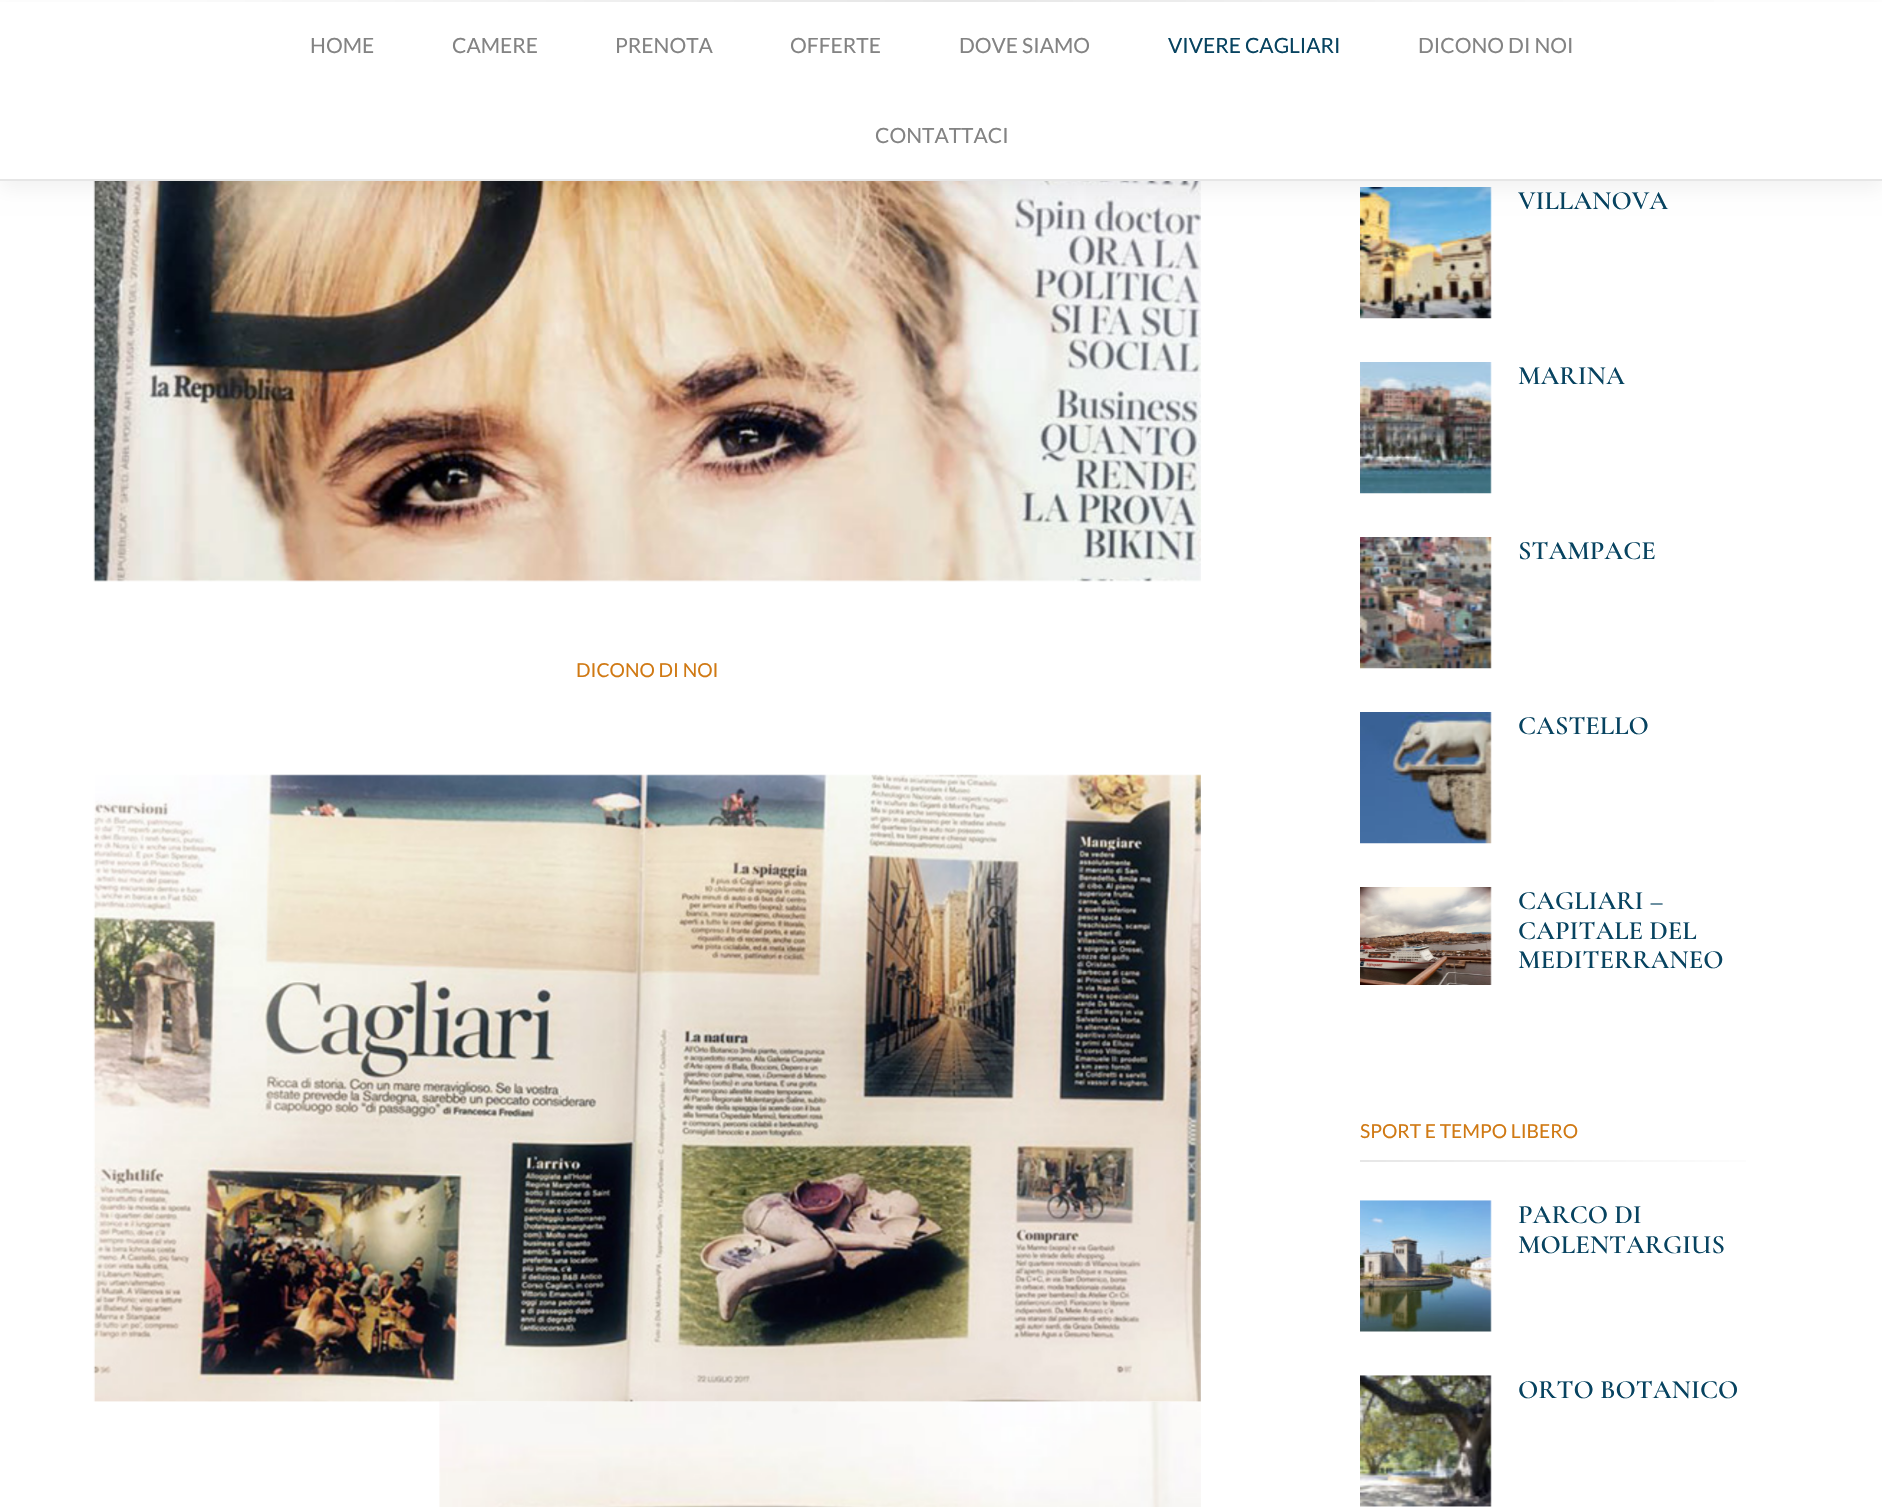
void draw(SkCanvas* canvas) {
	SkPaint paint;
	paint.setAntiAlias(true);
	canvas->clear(0xffffffff);
	canvas->drawImageRect(SkImages::DeferredFromEncodedData(SkData::MakeFromFileName("img1.png")), SkRect::MakeXYWH(93, 181, 1108, 401), SkSamplingOptions());
	canvas->drawImageRect(SkImages::DeferredFromEncodedData(SkData::MakeFromFileName("img4.png")), SkRect::MakeXYWH(1360, 187, 132, 132), SkSamplingOptions());
	paint.setColor(0x0d000000);
	paint.setMaskFilter(SkMaskFilter::MakeBlur(kNormal_SkBlurStyle, 9));
	canvas->drawRect(SkRect::MakeXYWH(0, 9, 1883, 180), paint);
	paint.setMaskFilter(nullptr);
	paint.setColor(0xffffffff);
	canvas->drawRect(SkRect::MakeXYWH(0, 2, 1882, 177), paint);
	{
		const SkColor colors[] = {0xffffffff, 0xffe6e6e6, 0xffffffff};
		const float stops[] = {0, 0.5, 1};
		const SkPoint ends[] = {{0, 0.9}, {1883, 0.9}};
		paint.setShader(SkGradientShader::MakeLinear(ends, colors, stops, 3, SkTileMode::kClamp));
		paint.setAlpha(255);
	}
	canvas->drawRect(SkRect::MakeXYWH(170, 0, 1544, 2), paint);
	SkFont f1(fontMgr->matchFamilyStyle("Lato", SkFontStyle::Normal()), 21);
	f1.setSubpixel(true);
	paint.setShader(nullptr);
	paint.setColor(0xff838383);
	canvas->drawString("HOME", 310, 53, f1, paint);
	canvas->drawString("CAMERE", 452, 53, f1, paint);
	canvas->drawString("PRENOTA", 615, 53, f1, paint);
	canvas->drawString("OFFERTE", 790, 53, f1, paint);
	canvas->drawString("DOVE SIAMO", 959, 53, f1, paint);
	paint.setColor(0xff074360);
	canvas->drawString("VIVERE CAGLIARI", 1168, 53, f1, paint);
	paint.setColor(0xff838383);
	canvas->drawString("DICONO DI NOI", 1418, 53, f1, paint);
	canvas->drawString("CONTATTACI", 875, 143, f1, paint);
	paint.setColor(0xffe6e6e6);
	canvas->drawRect(SkRect::MakeXYWH(0, 179, 1882, 2), paint);
	SkFont f2(fontMgr->matchFamilyStyle("Lato", SkFontStyle::Normal()), 19.25);
	f2.setSubpixel(true);
	paint.setColor(0xffd07913);
	canvas->drawString("DICONO DI NOI", 576, 677, f2, paint);
	canvas->drawImageRect(SkImages::DeferredFromEncodedData(SkData::MakeFromFileName("img3.png")), SkRect::MakeXYWH(439, 1401, 762, 106), SkSamplingOptions());
	canvas->drawImageRect(SkImages::DeferredFromEncodedData(SkData::MakeFromFileName("img2.png")), SkRect::MakeXYWH(93, 774, 1108, 628), SkSamplingOptions());
	SkFont f3(fontMgr->matchFamilyStyle("Cormorant Infant", SkFontStyle(600, SkFontStyle::kNormal_Width, SkFontStyle::kUpright_Slant)), 26.5);
	f3.setSubpixel(true);
	paint.setColor(0xff074360);
	canvas->drawString("VILLANOVA", 1518, 209, f3, paint);
	canvas->drawImageRect(SkImages::DeferredFromEncodedData(SkData::MakeFromFileName("img5.png")), SkRect::MakeXYWH(1360, 362, 132, 132), SkSamplingOptions());
	canvas->drawString("MARINA", 1518, 384, f3, paint);
	canvas->drawImageRect(SkImages::DeferredFromEncodedData(SkData::MakeFromFileName("img6.png")), SkRect::MakeXYWH(1360, 537, 132, 132), SkSamplingOptions());
	canvas->drawString("STAMPACE", 1518, 559, f3, paint);
	canvas->drawImageRect(SkImages::DeferredFromEncodedData(SkData::MakeFromFileName("img7.png")), SkRect::MakeXYWH(1360, 712, 132, 132), SkSamplingOptions());
	canvas->drawString("CASTELLO", 1518, 734, f3, paint);
	canvas->drawImageRect(SkImages::DeferredFromEncodedData(SkData::MakeFromFileName("img8.png")), SkRect::MakeXYWH(1360, 887, 132, 98), SkSamplingOptions());
	canvas->drawString("CAGLIARI –", 1518, 909, f3, paint);
	canvas->drawString("CAPITALE DEL", 1518, 939, f3, paint);
	canvas->drawString("MEDITERRANEO", 1518, 968, f3, paint);
	paint.setColor(0xffd07913);
	canvas->drawString("SPORT E TEMPO LIBERO", 1360, 1138, f2, paint);
	{
		const SkColor colors[] = {0xffe6e6e6, 0xffffffff};
		const float stops[] = {0, 1};
		const SkPoint ends[] = {{1360, 1161}, {1789, 1161}};
		paint.setShader(SkGradientShader::MakeLinear(ends, colors, stops, 2, SkTileMode::kClamp));
		paint.setAlpha(255);
	}
	canvas->drawRect(SkRect::MakeXYWH(1360, 1160, 386, 2), paint);
	canvas->drawImageRect(SkImages::DeferredFromEncodedData(SkData::MakeFromFileName("img9.png")), SkRect::MakeXYWH(1360, 1200, 132, 132), SkSamplingOptions());
	paint.setShader(nullptr);
	paint.setColor(0xff074360);
	canvas->drawString("PARCO DI", 1518, 1223, f3, paint);
	canvas->drawString("MOLENTARGIUS", 1518, 1253, f3, paint);
	canvas->drawImageRect(SkImages::DeferredFromEncodedData(SkData::MakeFromFileName("img10.png")), SkRect::MakeXYWH(1360, 1375, 132, 132), SkSamplingOptions());
	canvas->drawString("ORTO BOTANICO", 1518, 1398, f3, paint);
}
